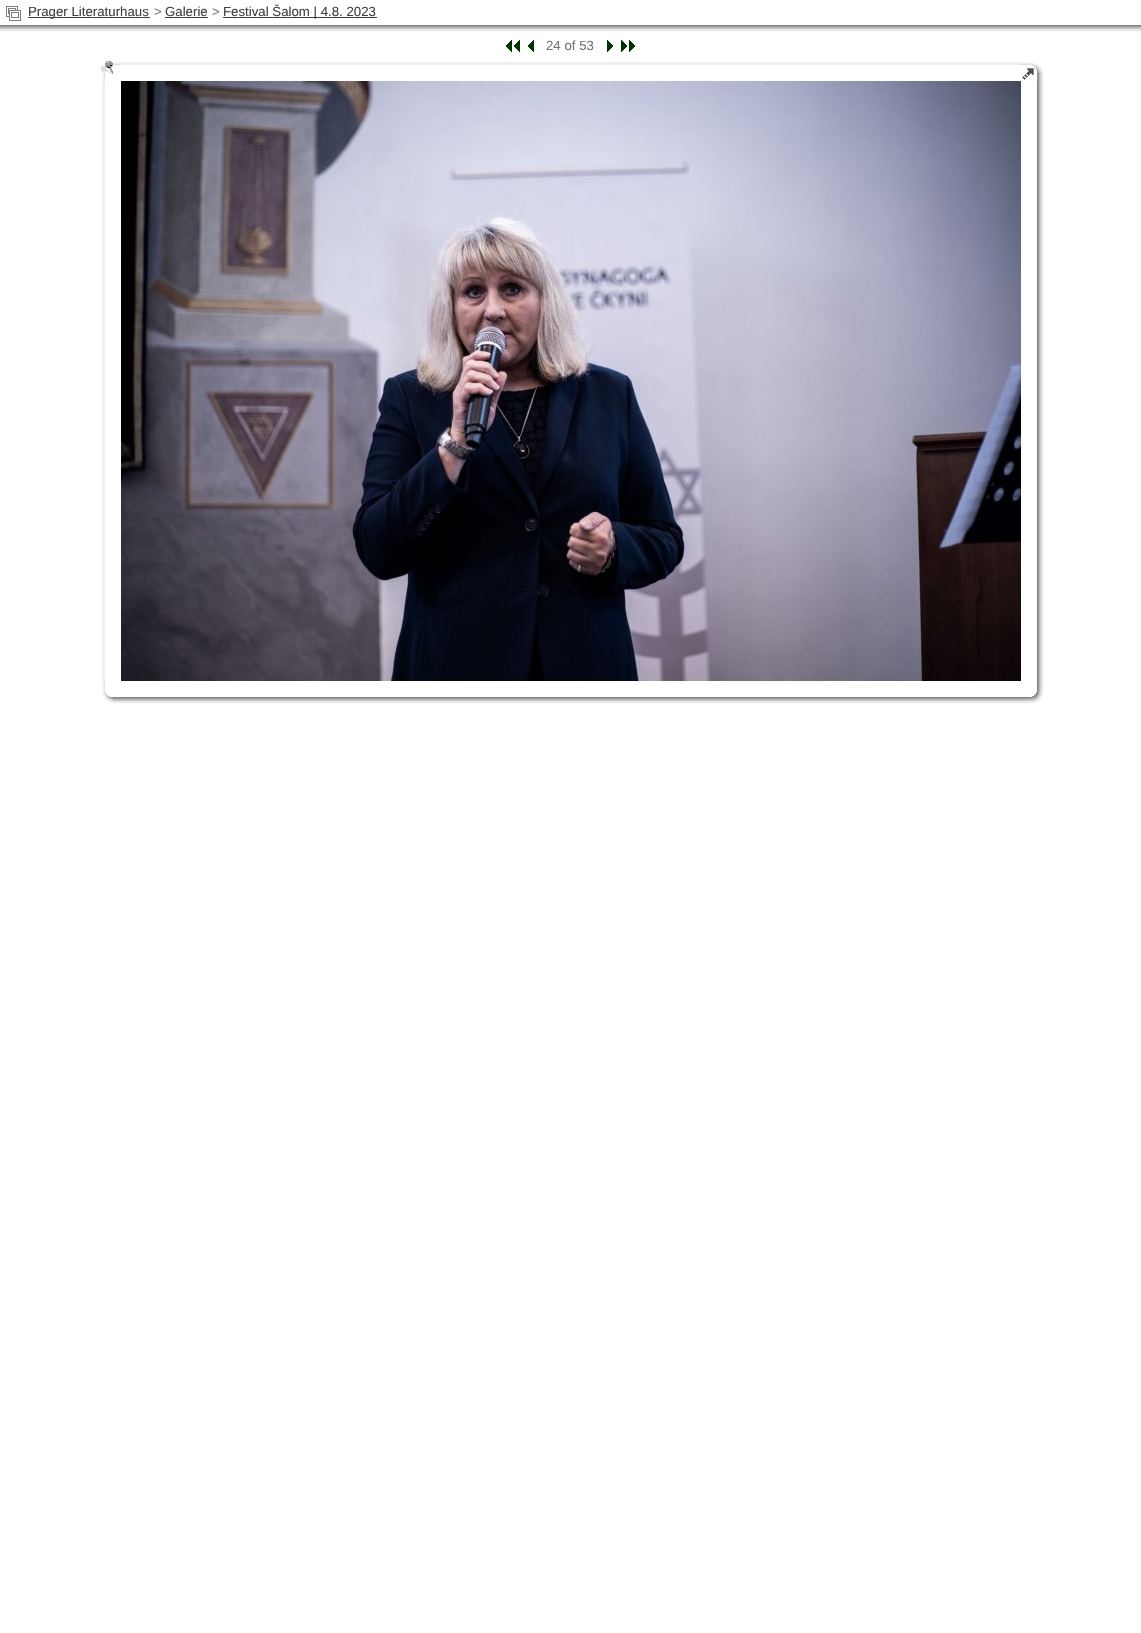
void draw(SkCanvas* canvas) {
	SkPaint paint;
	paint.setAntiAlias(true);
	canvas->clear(0xffffffff);
	canvas->drawImageRect(SkImages::DeferredFromEncodedData(SkData::MakeFromFileName("img1.png")), SkRect::MakeXYWH(0, 25, 1141, 7), SkSamplingOptions());
	canvas->drawImageRect(SkImages::DeferredFromEncodedData(SkData::MakeFromFileName("img2.png")), SkRect::MakeXYWH(6, 6, 15, 15), SkSamplingOptions());
	paint.setColor(0xff404040);
	canvas->drawRect(SkRect::MakeXYWH(28, 17, 122, 1), paint);
	SkFont f1(fontMgr->matchFamilyStyle("Liberation Sans", SkFontStyle::Normal()), 13.25);
	f1.setSubpixel(true);
	canvas->drawString("Prager Literaturhaus", 28, 16, f1, paint);
	paint.setColor(0xff737373);
	canvas->drawString(">", 154, 16, f1, paint);
	paint.setColor(0xff404040);
	canvas->drawString("Galerie", 165, 16, f1, paint);
	canvas->drawRect(SkRect::MakeXYWH(165, 17, 43, 1), paint);
	paint.setColor(0xff737373);
	canvas->drawString(">", 212, 16, f1, paint);
	paint.setColor(0xff404040);
	canvas->drawRect(SkRect::MakeXYWH(223, 17, 154, 1), paint);
	canvas->drawString("Festival Šalom | 4.8. 2023", 223, 16, f1, paint);
	canvas->drawImageRect(SkImages::DeferredFromEncodedData(SkData::MakeFromFileName("img3.png")), SkRect::MakeXYWH(506, 40, 14, 12), SkSamplingOptions());
	canvas->drawImageRect(SkImages::DeferredFromEncodedData(SkData::MakeFromFileName("img4.png")), SkRect::MakeXYWH(528, 40, 6, 12), SkSamplingOptions());
	paint.setColor(0xff737373);
	canvas->drawString("24 of 53", 546, 50, f1, paint);
	canvas->drawImageRect(SkImages::DeferredFromEncodedData(SkData::MakeFromFileName("img5.png")), SkRect::MakeXYWH(607, 40, 6, 12), SkSamplingOptions());
	canvas->drawImageRect(SkImages::DeferredFromEncodedData(SkData::MakeFromFileName("img6.png")), SkRect::MakeXYWH(621, 40, 14, 12), SkSamplingOptions());
	canvas->drawImageRect(SkImages::DeferredFromEncodedData(SkData::MakeFromFileName("img7.png")), SkRect::MakeXYWH(100, 60, 21, 21), SkSamplingOptions());
	paint.setColor(0xffefefef);
	canvas->drawRect(SkRect::MakeXYWH(121, 62, 900, 3), paint);
	canvas->drawImageRect(SkImages::DeferredFromEncodedData(SkData::MakeFromFileName("img8.png")), SkRect::MakeXYWH(1021, 62, 23, 19), SkSamplingOptions());
	canvas->drawRect(SkRect::MakeXYWH(102, 81, 3, 600), paint);
	canvas->drawImageRect(SkImages::DeferredFromEncodedData(SkData::MakeFromFileName("img9.png")), SkRect::MakeXYWH(121, 81, 900, 600), SkSamplingOptions());
	canvas->drawImageRect(SkImages::DeferredFromEncodedData(SkData::MakeFromFileName("img10.png")), SkRect::MakeXYWH(1037, 81, 7, 600), SkSamplingOptions());
	canvas->drawImageRect(SkImages::DeferredFromEncodedData(SkData::MakeFromFileName("img11.png")), SkRect::MakeXYWH(102, 681, 19, 23), SkSamplingOptions());
	canvas->drawImageRect(SkImages::DeferredFromEncodedData(SkData::MakeFromFileName("img12.png")), SkRect::MakeXYWH(121, 697, 900, 7), SkSamplingOptions());
	canvas->drawImageRect(SkImages::DeferredFromEncodedData(SkData::MakeFromFileName("img13.png")), SkRect::MakeXYWH(1021, 681, 23, 23), SkSamplingOptions());
}
